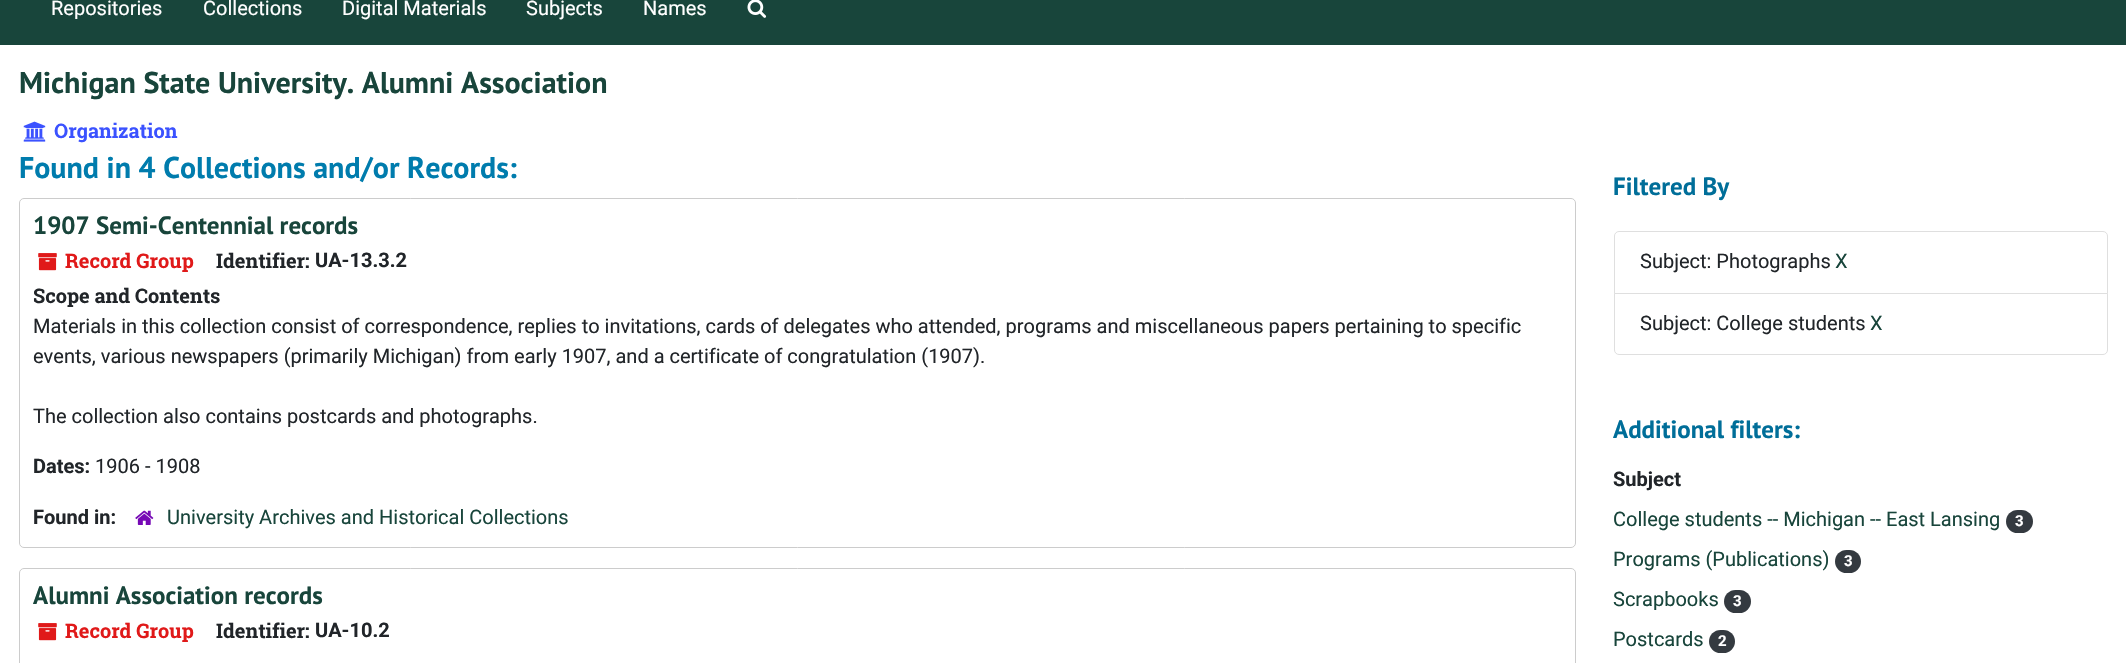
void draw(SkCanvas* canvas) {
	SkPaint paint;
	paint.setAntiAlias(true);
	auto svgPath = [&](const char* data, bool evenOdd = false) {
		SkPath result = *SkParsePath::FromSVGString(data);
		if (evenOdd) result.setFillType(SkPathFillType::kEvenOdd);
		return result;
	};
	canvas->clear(0xffffffff);
	paint.setStroke(true);
	paint.setStrokeWidth(1);
	paint.setColor(0xff18453b);
	canvas->drawRect(SkRect::MakeXYWH(0.5, -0.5, 2125, 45), paint);
	paint.setStroke(false);
	canvas->drawRect(SkRect::MakeXYWH(1, 0, 2124, 44), paint);
	SkFont f1(fontMgr->matchFamilyStyle("Roboto", SkFontStyle::Normal()), 20);
	f1.setSubpixel(true);
	paint.setColor(0xffffffff);
	canvas->drawString("Repositories", 51, 15, f1, paint);
	canvas->drawString("Collections", 203, 15, f1, paint);
	canvas->drawString("Digital Materials", 342, 15, f1, paint);
	canvas->drawString("Subjects", 526, 15, f1, paint);
	canvas->drawString("Names", 643, 15, f1, paint);
	canvas->drawImageRect(SkImages::DeferredFromEncodedData(SkData::MakeFromFileName("img1.png")), SkRect::MakeXYWH(747, 0, 20, 18), SkSamplingOptions());
	SkFont f2(fontMgr->matchFamilyStyle("PT Sans", SkFontStyle::Bold()), 30);
	f2.setSubpixel(true);
	paint.setColor(0xff18453b);
	canvas->drawString("Michigan State University. Alumni Association", 19, 93, f2, paint);
	canvas->drawImageRect(SkImages::DeferredFromEncodedData(SkData::MakeFromFileName("img2.png")), SkRect::MakeXYWH(23, 121, 23, 21), SkSamplingOptions());
	SkFont f3(fontMgr->matchFamilyStyle("Roboto Slab", SkFontStyle::Bold()), 20);
	f3.setSubpixel(true);
	paint.setColor(0xff3b52ff);
	canvas->drawString("Organization", 54, 138, f3, paint);
	paint.setColor(0xff007cad);
	canvas->drawString("Found in 4 Collections and/or Records:", 19, 178, f2, paint);
	paint.setStroke(true);
	paint.setColor(0xffcccccc);
	canvas->drawRoundRect(SkRect::MakeXYWH(19.5, 198.5, 1556, 349), 4.5, 4.5, paint);
	SkFont f4(fontMgr->matchFamilyStyle("PT Sans", SkFontStyle::Bold()), 25);
	f4.setSubpixel(true);
	paint.setStroke(false);
	paint.setColor(0xff18453b);
	canvas->drawString("1907 Semi-Centennial records", 33, 234, f4, paint);
	canvas->drawImageRect(SkImages::DeferredFromEncodedData(SkData::MakeFromFileName("img3.png")), SkRect::MakeXYWH(38, 253, 19, 18), SkSamplingOptions());
	paint.setColor(0xffe01919);
	canvas->drawString("Record Group", 65, 268, f3, paint);
	paint.setColor(0xff212529);
	canvas->drawString("Identifier:", 216, 268, f3, paint);
	SkFont f5(fontMgr->matchFamilyStyle("Roboto", SkFontStyle::Bold()), 20);
	f5.setSubpixel(true);
	canvas->drawString("UA-13.3.2", 315, 267, f5, paint);
	canvas->drawString("Scope and Contents", 33, 303, f3, paint);
	canvas->drawString("Materials in this collection consist of correspondence, replies to invitations, cards of delegates who attended, programs and miscellaneous papers pertaining to specific", 33, 333, f1, paint);
	canvas->drawString("events, various newspapers (primarily Michigan) from early 1907, and a certificate of congratulation (1907).", 33, 363, f1, paint);
	canvas->drawString("The collection also contains postcards and photographs.", 33, 423, f1, paint);
	canvas->drawString("Dates:", 33, 473, f5, paint);
	canvas->drawString("1906 - 1908", 95, 473, f1, paint);
	canvas->drawString("Found in:", 33, 524, f5, paint);
	canvas->drawImageRect(SkImages::DeferredFromEncodedData(SkData::MakeFromFileName("img4.png")), SkRect::MakeXYWH(135, 510, 19, 15), SkSamplingOptions());
	paint.setColor(0xff18453b);
	canvas->drawString("University Archives and Historical Collections", 167, 524, f1, paint);
	paint.setStroke(true);
	paint.setColor(0xffcccccc);
	canvas->drawRoundRect(SkRect::MakeXYWH(19.5, 568.5, 1556, 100), 4.5, 4.5, paint);
	paint.setStroke(false);
	paint.setColor(0xff18453b);
	canvas->drawString("Alumni Association records", 33, 604, f4, paint);
	canvas->drawImageRect(SkImages::DeferredFromEncodedData(SkData::MakeFromFileName("img3.png")), SkRect::MakeXYWH(38, 623, 19, 18), SkSamplingOptions());
	paint.setColor(0xffe01919);
	canvas->drawString("Record Group", 65, 638, f3, paint);
	paint.setColor(0xff212529);
	canvas->drawString("Identifier:", 216, 638, f3, paint);
	canvas->drawString("UA-10.2", 315, 637, f5, paint);
	paint.setColor(0xff006e99);
	canvas->drawString("Filtered By", 1613, 195, f4, paint);
	paint.setStroke(true);
	paint.setColor(0xffdfdfdf);
	canvas->drawPath(svgPath("M1619 231.5H2103C2105.5 231.5 2107.5 233.5 2107.5 236V293.5H1614.5V236C1614.5 233.5 1616.5 231.5 1619 231.5Z"), paint);
	paint.setStroke(false);
	paint.setColor(0xff212529);
	canvas->drawString("Subject: Photographs", 1640, 268, f1, paint);
	paint.setColor(0xff18453b);
	canvas->drawString("X", 1835, 268, f1, paint);
	paint.setColor(0xffffffff);
	canvas->drawPath(svgPath("M1614.5 293.5H2107.5V350C2107.5 352.5 2105.5 354.5 2103 354.5H1619C1616.5 354.5 1614.5 352.5 1614.5 350Z"), paint);
	paint.setStroke(true);
	paint.setColor(0xffdfdfdf);
	canvas->drawPath(svgPath("M1614.5 293.5H2107.5V350C2107.5 352.5 2105.5 354.5 2103 354.5H1619C1616.5 354.5 1614.5 352.5 1614.5 350Z"), paint);
	paint.setStroke(false);
	paint.setColor(0xff212529);
	canvas->drawString("Subject: College students", 1640, 330, f1, paint);
	paint.setColor(0xff18453b);
	canvas->drawString("X", 1870, 330, f1, paint);
	paint.setColor(0xff006e99);
	canvas->drawString("Additional filters:", 1613, 438, f4, paint);
	paint.setColor(0xff212529);
	canvas->drawString("Subject", 1613, 486, f5, paint);
	paint.setColor(0xff18453b);
	canvas->drawString("College students -- Michigan -- East Lansing", 1613, 526, f1, paint);
	paint.setColor(0xff343a40);
	canvas->drawRoundRect(SkRect::MakeXYWH(2006, 510, 27, 23), 11.5, 11.5, paint);
	SkFont f6(fontMgr->matchFamilyStyle("Roboto", SkFontStyle::Bold()), 15);
	f6.setSubpixel(true);
	paint.setColor(0xffffffff);
	canvas->drawString("3", 2015, 526, f6, paint);
	paint.setColor(0xff18453b);
	canvas->drawString("Programs (Publications)", 1613, 566, f1, paint);
	paint.setColor(0xff343a40);
	canvas->drawRoundRect(SkRect::MakeXYWH(1835, 550, 26, 23), 11.5, 11.5, paint);
	paint.setColor(0xffffffff);
	canvas->drawString("3", 1844, 566, f6, paint);
	paint.setColor(0xff18453b);
	canvas->drawString("Scrapbooks", 1613, 606, f1, paint);
	paint.setColor(0xff343a40);
	canvas->drawRoundRect(SkRect::MakeXYWH(1724, 590, 27, 23), 11.5, 11.5, paint);
	paint.setColor(0xffffffff);
	canvas->drawString("3", 1733, 606, f6, paint);
	paint.setColor(0xff18453b);
	canvas->drawString("Postcards", 1613, 646, f1, paint);
	paint.setColor(0xff343a40);
	canvas->drawRoundRect(SkRect::MakeXYWH(1709, 630, 26, 23), 11.5, 11.5, paint);
	paint.setColor(0xffffffff);
	canvas->drawString("2", 1718, 646, f6, paint);
}
